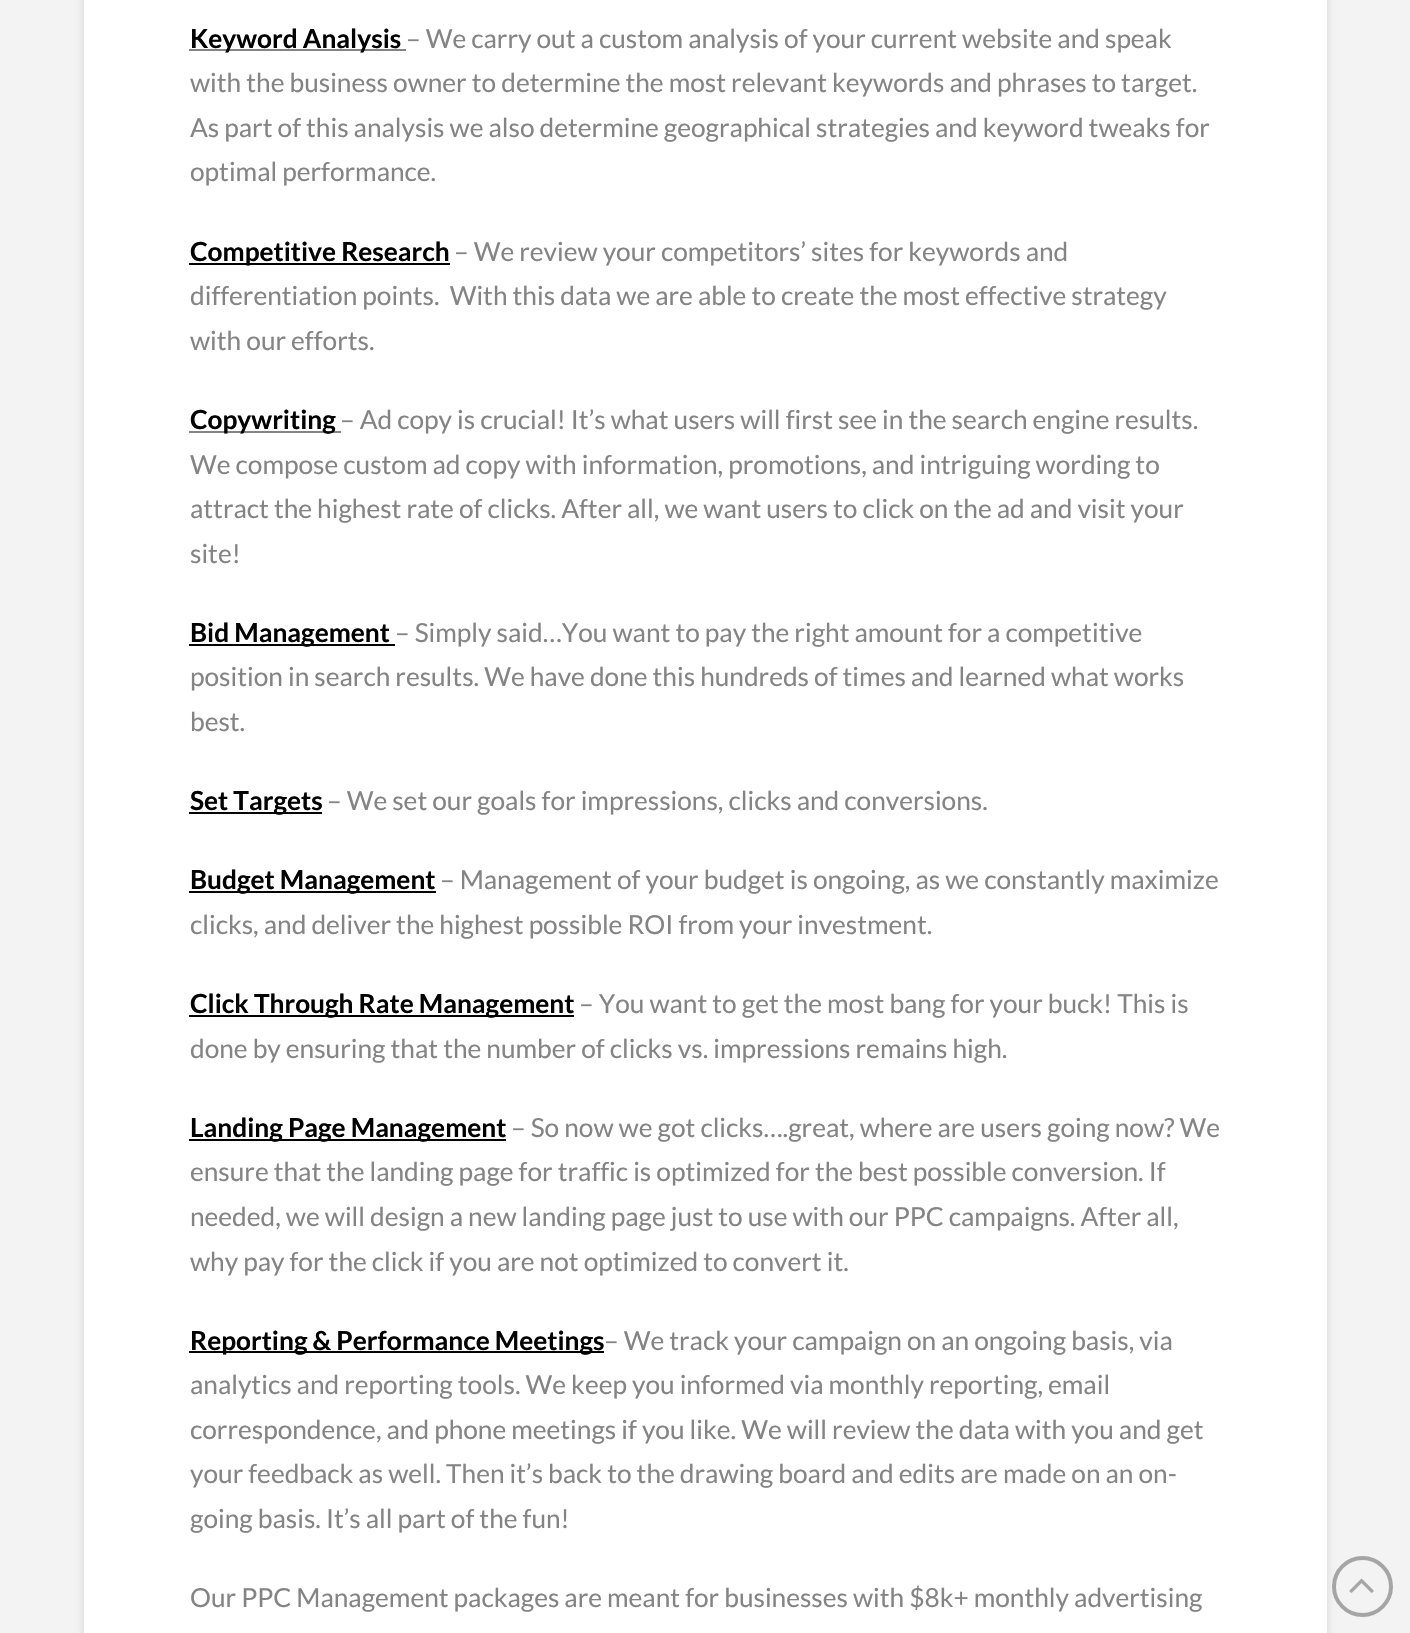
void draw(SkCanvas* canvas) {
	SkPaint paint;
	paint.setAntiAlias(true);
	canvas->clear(0xfff3f3f3);
	paint.setColor(0x21000000);
	paint.setMaskFilter(SkMaskFilter::MakeBlur(kNormal_SkBlurStyle, 4.5));
	canvas->drawRoundRect(SkRect::MakeXYWH(84, -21, 1243, 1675), 7, 7, paint);
	paint.setMaskFilter(nullptr);
	paint.setColor(0xffffffff);
	canvas->drawRect(SkRect::MakeXYWH(84, 0, 1243, 1633), paint);
	paint.setColor(0xff848484);
	canvas->drawRect(SkRect::MakeXYWH(189, 49, 217, 2), paint);
	SkFont f1(fontMgr->matchFamilyStyle("Lato", SkFontStyle::Bold()), 26.25);
	f1.setSubpixel(true);
	paint.setColor(0xff000000);
	canvas->drawString("Keyword Analysis", 190, 48, f1, paint);
	SkFont f2(fontMgr->matchFamilyStyle("Lato", SkFontStyle::Normal()), 26.25);
	f2.setSubpixel(true);
	paint.setColor(0xff848484);
	canvas->drawString("– We carry out a custom analysis of your current website and speak", 406, 48, f2, paint);
	canvas->drawString("with the business owner to determine the most relevant keywords and phrases to target.", 190, 92, f2, paint);
	canvas->drawString("As part of this analysis we also determine geographical strategies and keyword tweaks for", 190, 137, f2, paint);
	canvas->drawString("optimal performance.", 190, 181, f2, paint);
	paint.setColor(0xff000000);
	canvas->drawRect(SkRect::MakeXYWH(189, 263, 261, 2), paint);
	canvas->drawString("Competitive Research", 190, 261, f1, paint);
	paint.setColor(0xff848484);
	canvas->drawString("– We review your competitors’ sites for keywords and", 454, 261, f2, paint);
	canvas->drawString("differentiation points.  With this data we are able to create the most effective strategy", 190, 305, f2, paint);
	canvas->drawString("with our efforts.", 190, 350, f2, paint);
	canvas->drawRect(SkRect::MakeXYWH(189, 431, 152, 2), paint);
	paint.setColor(0xff000000);
	canvas->drawString("Copywriting", 190, 429, f1, paint);
	paint.setColor(0xff848484);
	canvas->drawString("– Ad copy is crucial! It’s what users will first see in the search engine results.", 340, 429, f2, paint);
	canvas->drawString("We compose custom ad copy with information, promotions, and intriguing wording to", 190, 474, f2, paint);
	canvas->drawString("attract the highest rate of clicks. After all, we want users to click on the ad and visit your", 190, 518, f2, paint);
	canvas->drawString("site!", 190, 563, f2, paint);
	paint.setColor(0xff000000);
	canvas->drawRect(SkRect::MakeXYWH(189, 644, 206, 2), paint);
	canvas->drawString("Bid Management", 190, 642, f1, paint);
	paint.setColor(0xff848484);
	canvas->drawString("– Simply said…You want to pay the right amount for a competitive", 395, 642, f2, paint);
	canvas->drawString("position in search results. We have done this hundreds of times and learned what works", 190, 686, f2, paint);
	canvas->drawString("best.", 190, 731, f2, paint);
	paint.setColor(0xff000000);
	canvas->drawRect(SkRect::MakeXYWH(189, 812, 133, 2), paint);
	canvas->drawString("Set Targets", 190, 810, f1, paint);
	paint.setColor(0xff848484);
	canvas->drawString("– We set our goals for impressions, clicks and conversions.", 327, 810, f2, paint);
	paint.setColor(0xff000000);
	canvas->drawRect(SkRect::MakeXYWH(189, 891, 247, 2), paint);
	canvas->drawString("Budget Management", 190, 889, f1, paint);
	paint.setColor(0xff848484);
	canvas->drawString("– Management of your budget is ongoing, as we constantly maximize", 440, 889, f2, paint);
	canvas->drawString("clicks, and deliver the highest possible ROI from your investment.", 190, 934, f2, paint);
	paint.setColor(0xff000000);
	canvas->drawRect(SkRect::MakeXYWH(189, 1015, 385, 2), paint);
	canvas->drawString("Click Through Rate Management", 190, 1013, f1, paint);
	paint.setColor(0xff848484);
	canvas->drawString("– You want to get the most bang for your buck! This is", 579, 1013, f2, paint);
	canvas->drawString("done by ensuring that the number of clicks vs. impressions remains high.", 190, 1058, f2, paint);
	paint.setColor(0xff000000);
	canvas->drawRect(SkRect::MakeXYWH(189, 1139, 317, 2), paint);
	canvas->drawString("Landing Page Management", 190, 1137, f1, paint);
	paint.setColor(0xff848484);
	canvas->drawString("– So now we got clicks….great, where are users going now? We", 511, 1137, f2, paint);
	canvas->drawString("ensure that the landing page for traffic is optimized for the best possible conversion. If", 190, 1181, f2, paint);
	canvas->drawString("needed, we will design a new landing page just to use with our PPC campaigns. After all,", 190, 1226, f2, paint);
	canvas->drawString("why pay for the click if you are not optimized to convert it.", 190, 1271, f2, paint);
	paint.setColor(0xff000000);
	canvas->drawRect(SkRect::MakeXYWH(189, 1351, 415, 2), paint);
	canvas->drawString("Reporting & Performance Meetings", 190, 1350, f1, paint);
	paint.setColor(0xff848484);
	canvas->drawString("– We track your campaign on an ongoing basis, via", 604, 1350, f2, paint);
	canvas->drawString("analytics and reporting tools. We keep you informed via monthly reporting, email", 190, 1394, f2, paint);
	canvas->drawString("correspondence, and phone meetings if you like. We will review the data with you and get", 190, 1439, f2, paint);
	canvas->drawString("your feedback as well. Then it’s back to the drawing board and edits are made on an on-", 190, 1483, f2, paint);
	canvas->drawString("going basis. It’s all part of the fun!", 190, 1528, f2, paint);
	canvas->drawString("Our PPC Management packages are meant for businesses with $8k+ monthly advertising", 190, 1607, f2, paint);
	paint.setStroke(true);
	paint.setStrokeWidth(4);
	paint.setColor(0x61272727);
	canvas->drawCircle(1362.5, 1586.5, 28.5, paint);
	canvas->drawImageRect(SkImages::DeferredFromEncodedData(SkData::MakeFromFileName("img1.png")), SkRect::MakeXYWH(1349, 1578, 25, 15), SkSamplingOptions());
}
